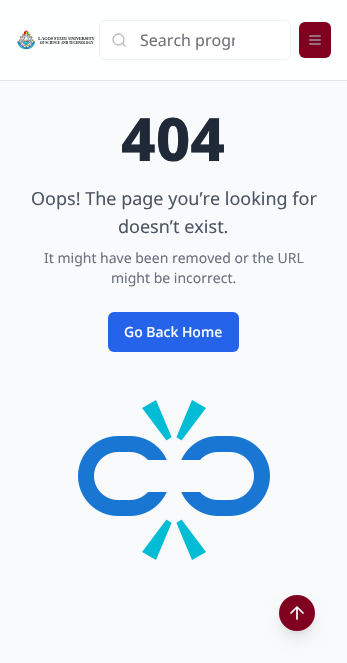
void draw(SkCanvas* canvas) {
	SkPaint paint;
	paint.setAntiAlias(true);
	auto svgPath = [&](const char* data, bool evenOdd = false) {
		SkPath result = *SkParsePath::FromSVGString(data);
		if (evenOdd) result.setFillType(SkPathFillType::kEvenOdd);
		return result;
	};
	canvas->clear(0xfff9fafb);
	paint.setColor(0xfffeffff);
	canvas->drawRect(SkRect::MakeXYWH(0, 0, 347, 80), paint);
	paint.setColor(0xffe4e4e7);
	canvas->drawRect(SkRect::MakeXYWH(0, 80, 347, 1), paint);
	canvas->drawImageRect(SkImages::DeferredFromEncodedData(SkData::MakeFromFileName("img1.png")), SkRect::MakeXYWH(17, 30, 78, 20), SkSamplingOptions());
	paint.setStroke(true);
	paint.setStrokeWidth(1.3);
	paint.setColor(0xff71717a);
	canvas->drawCircle(118.5, 39.5, 5.5, paint);
	paint.setStrokeCap(SkPaint::kRound_Cap);
	paint.setStrokeJoin(SkPaint::kRound_Join);
	canvas->drawPath(svgPath("M125 46L122 43"), paint);
	paint.setStroke(false);
	paint.setColor(0x80ffffff);
	canvas->drawRoundRect(SkRect::MakeXYWH(99.5, 20.5, 191, 39), 5.5, 5.5, paint);
	paint.setStroke(true);
	paint.setStrokeWidth(1);
	paint.setStrokeCap(SkPaint::kButt_Cap);
	paint.setStrokeJoin(SkPaint::kMiter_Join);
	paint.setColor(0xfff1f2f3);
	canvas->drawRoundRect(SkRect::MakeXYWH(99.5, 20.5, 191, 39), 5.5, 5.5, paint);
	canvas->save();
	canvas->clipRect(SkRect::MakeXYWH(140, 29, 95, 22));
	SkFont f1(fontMgr->matchFamilyStyle("Noto Sans", SkFontStyle::Normal()), 16);
	f1.setSubpixel(true);
	paint.setStroke(false);
	paint.setColor(0xff71717a);
	canvas->drawString("Search progr", 140, 46, f1, paint);
	canvas->restore();
	paint.setColor(0xff800020);
	canvas->drawRoundRect(SkRect::MakeXYWH(299, 22, 32, 36), 6, 6, paint);
	canvas->drawImageRect(SkImages::DeferredFromEncodedData(SkData::MakeFromFileName("img2.png")), SkRect::MakeXYWH(309, 35, 12, 10), SkSamplingOptions());
	SkFont f2(fontMgr->matchFamilyStyle("Noto Sans", SkFontStyle(800, SkFontStyle::kNormal_Width, SkFontStyle::kUpright_Slant)), 60);
	f2.setSubpixel(true);
	paint.setColor(0xff1f2937);
	canvas->drawString("404", 121, 161, f2, paint);
	SkFont f3(fontMgr->matchFamilyStyle("Noto Sans", SkFontStyle::Normal()), 18);
	f3.setSubpixel(true);
	paint.setColor(0xff4b5563);
	canvas->drawString("Oops! The page you’re looking for", 31, 205, f3, paint);
	canvas->drawString("doesn’t exist.", 118, 233, f3, paint);
	SkFont f4(fontMgr->matchFamilyStyle("Noto Sans", SkFontStyle::Normal()), 14);
	f4.setSubpixel(true);
	paint.setColor(0xff6b7280);
	canvas->drawString("It might have been removed or the URL", 44, 263, f4, paint);
	canvas->drawString("might be incorrect.", 111, 283, f4, paint);
	paint.setColor(0xff2563eb);
	canvas->drawRoundRect(SkRect::MakeXYWH(108, 312, 131, 40), 6, 6, paint);
	SkFont f5(fontMgr->matchFamilyStyle("Noto Sans", SkFontStyle(500, SkFontStyle::kNormal_Width, SkFontStyle::kUpright_Slant)), 14);
	f5.setSubpixel(true);
	paint.setColor(0xffffffff);
	canvas->drawString("Go Back Home", 124, 337, f5, paint);
	canvas->drawImageRect(SkImages::DeferredFromEncodedData(SkData::MakeFromFileName("img3.png")), SkRect::MakeXYWH(78, 400, 192, 160), SkSamplingOptions());
	paint.setColor(0x1a000000);
	paint.setMaskFilter(SkMaskFilter::MakeBlur(kNormal_SkBlurStyle, 3));
	canvas->drawRoundRect(SkRect::MakeXYWH(283, 603, 28, 28), 14, 14, paint);
	paint.setMaskFilter(nullptr);
	paint.setMaskFilter(SkMaskFilter::MakeBlur(kNormal_SkBlurStyle, 7.5));
	canvas->drawRoundRect(SkRect::MakeXYWH(282, 608, 30, 30), 15, 15, paint);
	paint.setMaskFilter(nullptr);
	paint.setColor(0xff800020);
	canvas->drawCircle(297, 613, 18, paint);
	paint.setStroke(true);
	paint.setStrokeWidth(1.7);
	paint.setStrokeCap(SkPaint::kRound_Cap);
	paint.setStrokeJoin(SkPaint::kRound_Join);
	paint.setColor(0xffffffff);
	canvas->drawPath(svgPath("M291 613L297 607L303 613M297 619V607"), paint);
}
